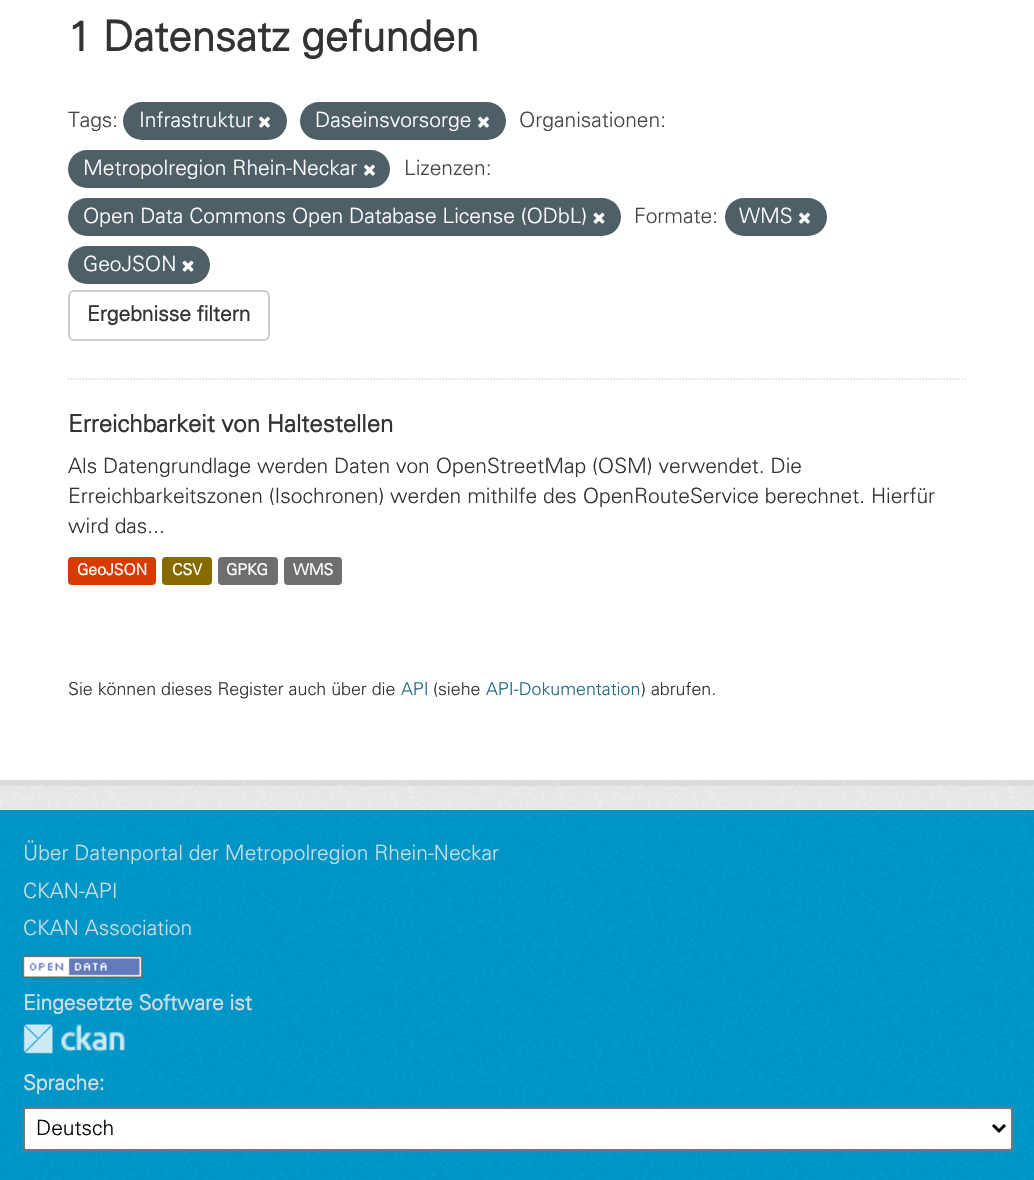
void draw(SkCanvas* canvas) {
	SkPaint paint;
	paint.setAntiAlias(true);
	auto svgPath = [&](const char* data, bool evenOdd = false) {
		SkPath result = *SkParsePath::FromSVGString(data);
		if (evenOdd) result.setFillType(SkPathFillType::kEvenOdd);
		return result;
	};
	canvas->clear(0xffeeeeee);
	canvas->drawImageRect(SkImages::DeferredFromEncodedData(SkData::MakeFromFileName("img1.png")), SkRect::MakeXYWH(0, 780, 1034, 30), SkSamplingOptions());
	paint.setStroke(true);
	paint.setStrokeWidth(6);
	paint.setColor(0x0d000000);
	canvas->drawRect(SkRect::MakeXYWH(-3, -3, 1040, 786), paint);
	paint.setStroke(false);
	paint.setColor(0xffffffff);
	canvas->drawRect(SkRect::MakeXYWH(0, 0, 1034, 780), paint);
	paint.setStroke(true);
	paint.setStrokeWidth(1.5);
	paint.setColor(0xffdddddd);
	paint.setPathEffect(SkDashPathEffect::Make({{1.5f, 1.5f}}, 0));
	canvas->drawPath(svgPath("M67.5 379H967.5"), paint);
	paint.setPathEffect(nullptr);
	SkFont f1(fontMgr->matchFamilyStyle("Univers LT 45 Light", SkFontStyle::Bold()), 42);
	f1.setSubpixel(true);
	paint.setStroke(false);
	paint.setColor(0xff333333);
	canvas->drawString("1 Datensatz gefunden", 68, 51, f1, paint);
	SkFont f2(fontMgr->matchFamilyStyle("Univers LT 45 Light", SkFontStyle(300, SkFontStyle::kNormal_Width, SkFontStyle::kUpright_Slant)), 21);
	f2.setSubpixel(true);
	paint.setColor(0xff444444);
	canvas->drawString("Tags:", 68, 127, f2, paint);
	paint.setColor(0xff4e5f65);
	canvas->drawRoundRect(SkRect::MakeXYWH(123, 102, 164, 38), 19, 19, paint);
	paint.setColor(0xffffffff);
	canvas->drawString("Infrastruktur", 139, 127, f2, paint);
	canvas->drawImageRect(SkImages::DeferredFromEncodedData(SkData::MakeFromFileName("img2.png")), SkRect::MakeXYWH(259, 116, 11, 12), SkSamplingOptions());
	paint.setColor(0xff4e5f65);
	canvas->drawRoundRect(SkRect::MakeXYWH(300, 102, 206, 38), 19, 19, paint);
	paint.setColor(0xffffffff);
	canvas->drawString("Daseinsvorsorge", 315, 127, f2, paint);
	canvas->drawImageRect(SkImages::DeferredFromEncodedData(SkData::MakeFromFileName("img2.png")), SkRect::MakeXYWH(478, 116, 11, 12), SkSamplingOptions());
	paint.setColor(0xff444444);
	canvas->drawString("Organisationen:", 519, 127, f2, paint);
	paint.setColor(0xff4e5f65);
	canvas->drawRoundRect(SkRect::MakeXYWH(68, 150, 322, 38), 19, 19, paint);
	paint.setColor(0xffffffff);
	canvas->drawString("Metropolregion Rhein-Neckar", 83, 175, f2, paint);
	canvas->drawImageRect(SkImages::DeferredFromEncodedData(SkData::MakeFromFileName("img2.png")), SkRect::MakeXYWH(364, 164, 11, 12), SkSamplingOptions());
	paint.setColor(0xff444444);
	canvas->drawString("Lizenzen:", 404, 175, f2, paint);
	paint.setColor(0xff4e5f65);
	canvas->drawRoundRect(SkRect::MakeXYWH(68, 198, 553, 38), 19, 19, paint);
	paint.setColor(0xffffffff);
	canvas->drawString("Open Data Commons Open Database License (ODbL)", 83, 223, f2, paint);
	canvas->drawImageRect(SkImages::DeferredFromEncodedData(SkData::MakeFromFileName("img3.png")), SkRect::MakeXYWH(593, 212, 12, 12), SkSamplingOptions());
	paint.setColor(0xff444444);
	canvas->drawString("Formate:", 634, 223, f2, paint);
	paint.setColor(0xff4e5f65);
	canvas->drawRoundRect(SkRect::MakeXYWH(725, 198, 102, 38), 19, 19, paint);
	paint.setColor(0xffffffff);
	canvas->drawString("WMS", 739, 223, f2, paint);
	canvas->drawImageRect(SkImages::DeferredFromEncodedData(SkData::MakeFromFileName("img2.png")), SkRect::MakeXYWH(799, 212, 11, 12), SkSamplingOptions());
	paint.setColor(0xff4e5f65);
	canvas->drawRoundRect(SkRect::MakeXYWH(68, 246, 142, 38), 19, 19, paint);
	paint.setColor(0xffffffff);
	canvas->drawString("GeoJSON", 83, 271, f2, paint);
	canvas->drawImageRect(SkImages::DeferredFromEncodedData(SkData::MakeFromFileName("img3.png")), SkRect::MakeXYWH(182, 260, 12, 12), SkSamplingOptions());
	paint.setStroke(true);
	paint.setStrokeWidth(2);
	paint.setColor(0xffcccccc);
	canvas->drawRoundRect(SkRect::MakeXYWH(69, 291, 200, 49), 5, 5, paint);
	SkFont f3(fontMgr->matchFamilyStyle("Univers LT 45 Light", SkFontStyle::Bold()), 21);
	f3.setSubpixel(true);
	paint.setStroke(false);
	paint.setColor(0xff333333);
	canvas->drawString("Ergebnisse filtern", 87, 321, f3, paint);
	SkFont f4(fontMgr->matchFamilyStyle("Univers LT 45 Light", SkFontStyle::Bold()), 24);
	f4.setSubpixel(true);
	canvas->drawString("Erreichbarkeit von Haltestellen", 68, 432, f4, paint);
	canvas->drawString("Als Datengrundlage werden Daten von OpenStreetMap (OSM) verwendet. Die", 68, 473, f2, paint);
	canvas->drawString("Erreichbarkeitszonen (Isochronen) werden mithilfe des OpenRouteService berechnet. Hierfür", 68, 503, f2, paint);
	canvas->drawString("wird das...", 68, 533, f2, paint);
	paint.setColor(0xffd63b00);
	canvas->drawRoundRect(SkRect::MakeXYWH(68, 557, 88, 28), 4, 4, paint);
	SkFont f5(fontMgr->matchFamilyStyle("Univers LT 45 Light", SkFontStyle::Bold()), 15.75);
	f5.setSubpixel(true);
	paint.setColor(0xffffffff);
	canvas->drawString("GeoJSON", 77, 575, f5, paint);
	paint.setColor(0xff856a00);
	canvas->drawRoundRect(SkRect::MakeXYWH(162, 557, 50, 28), 4, 4, paint);
	paint.setColor(0xffffffff);
	canvas->drawString("CSV", 172, 575, f5, paint);
	paint.setColor(0xff6e6e6e);
	canvas->drawRoundRect(SkRect::MakeXYWH(218, 557, 60, 28), 4, 4, paint);
	paint.setColor(0xffffffff);
	canvas->drawString("GPKG", 226, 575, f5, paint);
	paint.setColor(0xff6e6e6e);
	canvas->drawRoundRect(SkRect::MakeXYWH(284, 557, 58, 28), 4, 4, paint);
	paint.setColor(0xffffffff);
	canvas->drawString("WMS", 293, 575, f5, paint);
	SkFont f6(fontMgr->matchFamilyStyle("Univers LT 45 Light", SkFontStyle(300, SkFontStyle::kNormal_Width, SkFontStyle::kUpright_Slant)), 17.8);
	f6.setSubpixel(true);
	paint.setColor(0xff333333);
	canvas->drawString("Sie können dieses Register auch über die", 68, 695, f6, paint);
	paint.setColor(0xff206b82);
	canvas->drawString("API", 401, 695, f6, paint);
	paint.setColor(0xff333333);
	canvas->drawString("(siehe", 433, 695, f6, paint);
	paint.setColor(0xff206b82);
	canvas->drawString("API-Dokumentation", 486, 695, f6, paint);
	paint.setColor(0xff333333);
	canvas->drawString(") abrufen.", 641, 695, f6, paint);
	paint.setColor(0xff0099cc);
	canvas->drawRect(SkRect::MakeXYWH(0, 810, 1034, 370), paint);
	canvas->drawImageRect(SkImages::DeferredFromEncodedData(SkData::MakeFromFileName("img4.png")), SkRect::MakeXYWH(0, 810, 1034, 370), SkSamplingOptions());
	paint.setColor(0xffccdee3);
	canvas->drawString("Über Datenportal der Metropolregion Rhein-Neckar", 23, 860, f2, paint);
	canvas->drawString("CKAN-API", 23, 898, f2, paint);
	canvas->drawString("CKAN Association", 23, 935, f2, paint);
	canvas->drawImageRect(SkImages::DeferredFromEncodedData(SkData::MakeFromFileName("img5.png")), SkRect::MakeXYWH(22, 955, 121, 23), SkSamplingOptions());
	canvas->drawString("Eingesetzte Software ist", 23, 1010, f3, paint);
	canvas->drawImageRect(SkImages::DeferredFromEncodedData(SkData::MakeFromFileName("img6.png")), SkRect::MakeXYWH(23, 1024, 102, 30), SkSamplingOptions());
	canvas->drawString("Sprache:", 23, 1090, f3, paint);
	paint.setColor(0xffffffff);
	canvas->drawRoundRect(SkRect::MakeXYWH(24, 1108, 988, 42), 2, 2, paint);
	paint.setStroke(true);
	paint.setColor(0xff767676);
	canvas->drawRoundRect(SkRect::MakeXYWH(24, 1108, 988, 42), 2, 2, paint);
	paint.setStrokeWidth(3);
	paint.setColor(0xff000000);
	canvas->drawPath(svgPath("M993 1125L999 1131L1005 1125"), paint);
	paint.setStroke(false);
	canvas->drawString("Deutsch", 36, 1135, f2, paint);
}
